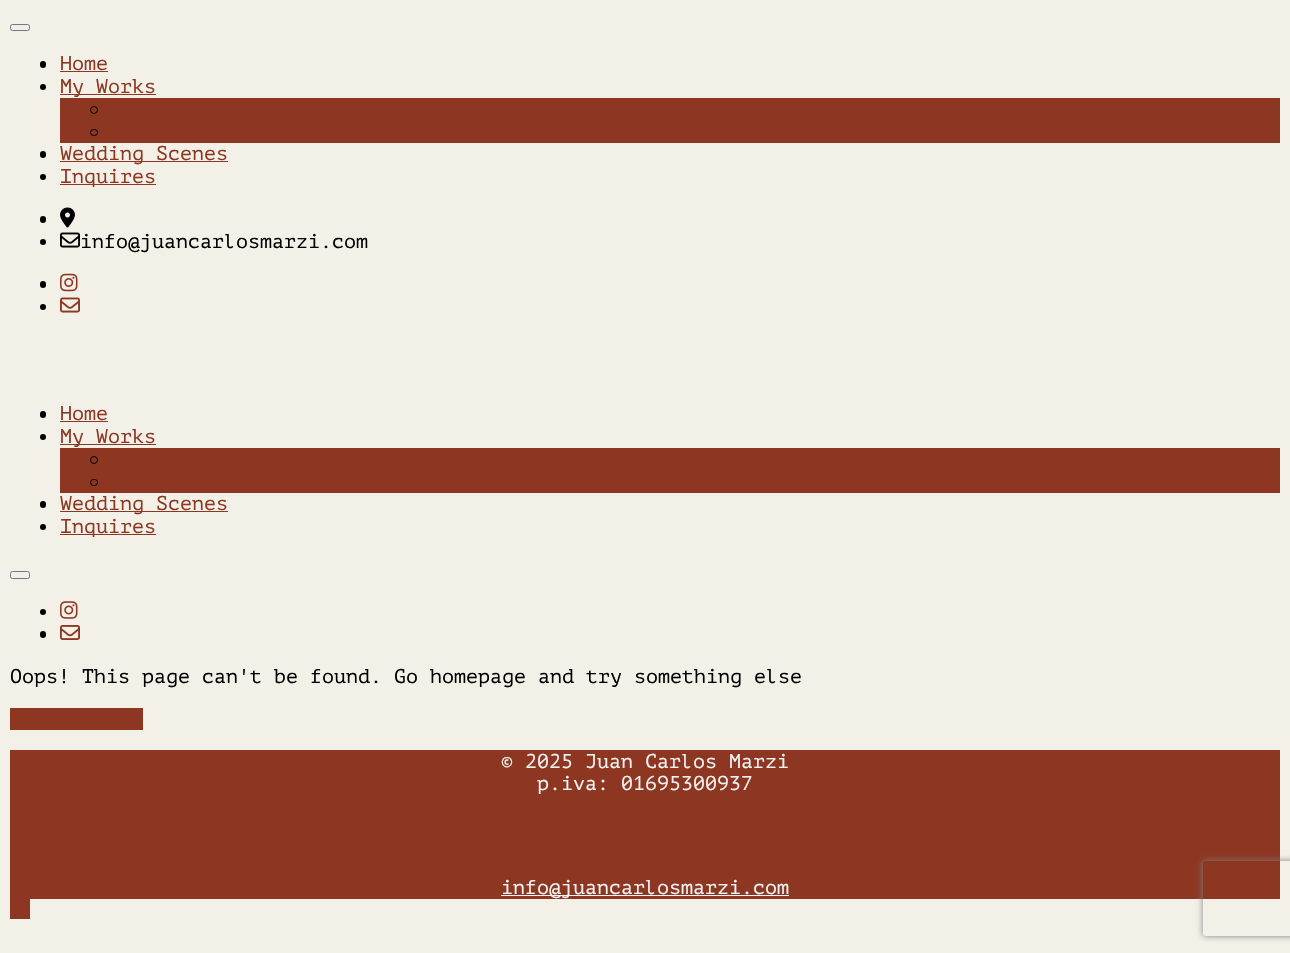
void draw(SkCanvas* canvas) {
	SkPaint paint;
	paint.setAntiAlias(true);
	auto svgPath = [&](const char* data, bool evenOdd = false) {
		SkPath result = *SkParsePath::FromSVGString(data);
		if (evenOdd) result.setFillType(SkPathFillType::kEvenOdd);
		return result;
	};
	canvas->clear(0xfff3f0e8);
	paint.setColor(0xffefefef);
	canvas->drawRoundRect(SkRect::MakeXYWH(10.5, 24.5, 19, 6), 2, 2, paint);
	paint.setStroke(true);
	paint.setStrokeWidth(1);
	paint.setColor(0xff767676);
	canvas->drawRoundRect(SkRect::MakeXYWH(10.5, 24.5, 19, 6), 2, 2, paint);
	paint.setStroke(false);
	paint.setColor(0xff000000);
	canvas->drawRoundRect(SkRect::MakeXYWH(40, 61, 6, 7), 3, 3, paint);
	SkFont f1(fontMgr->matchFamilyStyle("PT Mono", SkFontStyle::Normal()), 20);
	f1.setSubpixel(true);
	paint.setColor(0xff8d3723);
	canvas->drawString("Home", 60, 70, f1, paint);
	canvas->drawRect(SkRect::MakeXYWH(60, 71, 48, 1), paint);
	paint.setColor(0xff000000);
	canvas->drawCircle(43, 87, 3, paint);
	paint.setColor(0xff8d3723);
	canvas->drawRect(SkRect::MakeXYWH(60, 94, 96, 1), paint);
	canvas->drawString("My Works", 60, 93, f1, paint);
	canvas->drawRect(SkRect::MakeXYWH(60, 98, 1220, 45), paint);
	paint.setStroke(true);
	paint.setColor(0xff000000);
	canvas->drawCircle(94, 110, 3.5, paint);
	canvas->drawRoundRect(SkRect::MakeXYWH(90.5, 129.5, 7, 6), 3, 3, paint);
	paint.setStroke(false);
	canvas->drawRoundRect(SkRect::MakeXYWH(40, 151, 6, 7), 3, 3, paint);
	paint.setColor(0xff8d3723);
	canvas->drawRect(SkRect::MakeXYWH(60, 161, 168, 1), paint);
	canvas->drawString("Wedding Scenes", 60, 160, f1, paint);
	paint.setColor(0xff000000);
	canvas->drawCircle(43, 177, 3, paint);
	paint.setColor(0xff8d3723);
	canvas->drawRect(SkRect::MakeXYWH(60, 184, 96, 1), paint);
	canvas->drawString("Inquires", 60, 183, f1, paint);
	paint.setColor(0xff000000);
	canvas->drawRoundRect(SkRect::MakeXYWH(40, 216, 6, 7), 3, 3, paint);
	canvas->drawImageRect(SkImages::DeferredFromEncodedData(SkData::MakeFromFileName("img1.png")), SkRect::MakeXYWH(60, 207, 15, 21), SkSamplingOptions());
	canvas->drawCircle(43, 242, 3, paint);
	canvas->drawImageRect(SkImages::DeferredFromEncodedData(SkData::MakeFromFileName("img2.png")), SkRect::MakeXYWH(60, 232, 20, 16), SkSamplingOptions());
	canvas->drawString("info@juancarlosmarzi.com", 80, 248, f1, paint);
	canvas->drawRoundRect(SkRect::MakeXYWH(40, 281, 6, 7), 3, 3, paint);
	canvas->drawImageRect(SkImages::DeferredFromEncodedData(SkData::MakeFromFileName("img3.png")), SkRect::MakeXYWH(60, 273, 18, 19), SkSamplingOptions());
	canvas->drawCircle(43, 307, 3, paint);
	canvas->drawImageRect(SkImages::DeferredFromEncodedData(SkData::MakeFromFileName("img4.png")), SkRect::MakeXYWH(60, 297, 20, 16), SkSamplingOptions());
	canvas->drawRoundRect(SkRect::MakeXYWH(40, 411, 6, 7), 3, 3, paint);
	paint.setColor(0xff8d3723);
	canvas->drawString("Home", 60, 420, f1, paint);
	canvas->drawRect(SkRect::MakeXYWH(60, 421, 48, 1), paint);
	paint.setColor(0xff000000);
	canvas->drawCircle(43, 437, 3, paint);
	paint.setColor(0xff8d3723);
	canvas->drawRect(SkRect::MakeXYWH(60, 444, 96, 1), paint);
	canvas->drawString("My Works", 60, 443, f1, paint);
	canvas->drawRect(SkRect::MakeXYWH(60, 448, 1220, 45), paint);
	paint.setStroke(true);
	paint.setColor(0xff000000);
	canvas->drawCircle(94, 460, 3.5, paint);
	canvas->drawRoundRect(SkRect::MakeXYWH(90.5, 479.5, 7, 6), 3, 3, paint);
	paint.setStroke(false);
	canvas->drawRoundRect(SkRect::MakeXYWH(40, 501, 6, 7), 3, 3, paint);
	paint.setColor(0xff8d3723);
	canvas->drawRect(SkRect::MakeXYWH(60, 511, 168, 1), paint);
	canvas->drawString("Wedding Scenes", 60, 510, f1, paint);
	paint.setColor(0xff000000);
	canvas->drawCircle(43, 527, 3, paint);
	paint.setColor(0xff8d3723);
	canvas->drawRect(SkRect::MakeXYWH(60, 534, 96, 1), paint);
	canvas->drawString("Inquires", 60, 533, f1, paint);
	paint.setColor(0xffefefef);
	canvas->drawRoundRect(SkRect::MakeXYWH(10.5, 571.5, 19, 7), 2, 2, paint);
	paint.setStroke(true);
	paint.setColor(0xff767676);
	canvas->drawRoundRect(SkRect::MakeXYWH(10.5, 571.5, 19, 7), 2, 2, paint);
	paint.setStroke(false);
	paint.setColor(0xff000000);
	canvas->drawCircle(43, 612, 3, paint);
	canvas->drawImageRect(SkImages::DeferredFromEncodedData(SkData::MakeFromFileName("img5.png")), SkRect::MakeXYWH(60, 601, 18, 18), SkSamplingOptions());
	canvas->drawRoundRect(SkRect::MakeXYWH(40, 631, 6, 7), 3, 3, paint);
	canvas->drawImageRect(SkImages::DeferredFromEncodedData(SkData::MakeFromFileName("img6.png")), SkRect::MakeXYWH(60, 625, 20, 15), SkSamplingOptions());
	canvas->drawString("Oops! This page can't be found. Go homepage and try something else", 10, 683, f1, paint);
	paint.setColor(0xff8d3723);
	canvas->drawRect(SkRect::MakeXYWH(10, 708, 133, 22), paint);
	canvas->drawRect(SkRect::MakeXYWH(10, 899, 20, 20), paint);
	canvas->drawRect(SkRect::MakeXYWH(10, 750, 1270, 149), paint);
	paint.setColor(0xfff3f3f3);
	canvas->drawString("© 2025 Juan Carlos Marzi", 501, 768, f1, paint);
	canvas->drawString("p.iva: 01695300937", 537, 790, f1, paint);
	canvas->drawRect(SkRect::MakeXYWH(501, 895, 288, 1), paint);
	canvas->drawString("info@juancarlosmarzi.com", 501, 894, f1, paint);
	canvas->save();
	canvas->clipPath(svgPath("M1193 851H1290V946H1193ZM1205.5 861H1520.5C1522 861 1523 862 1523 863.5V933.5C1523 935 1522 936 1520.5 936H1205.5C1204 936 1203 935 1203 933.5V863.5C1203 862 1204 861 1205.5 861Z", true), true);
	paint.setColor(0xff808080);
	paint.setMaskFilter(SkMaskFilter::MakeBlur(kNormal_SkBlurStyle, 3));
	canvas->drawRoundRect(SkRect::MakeXYWH(1203, 861, 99, 75), 2.5, 2.5, paint);
	paint.setMaskFilter(nullptr);
	canvas->restore();
}
